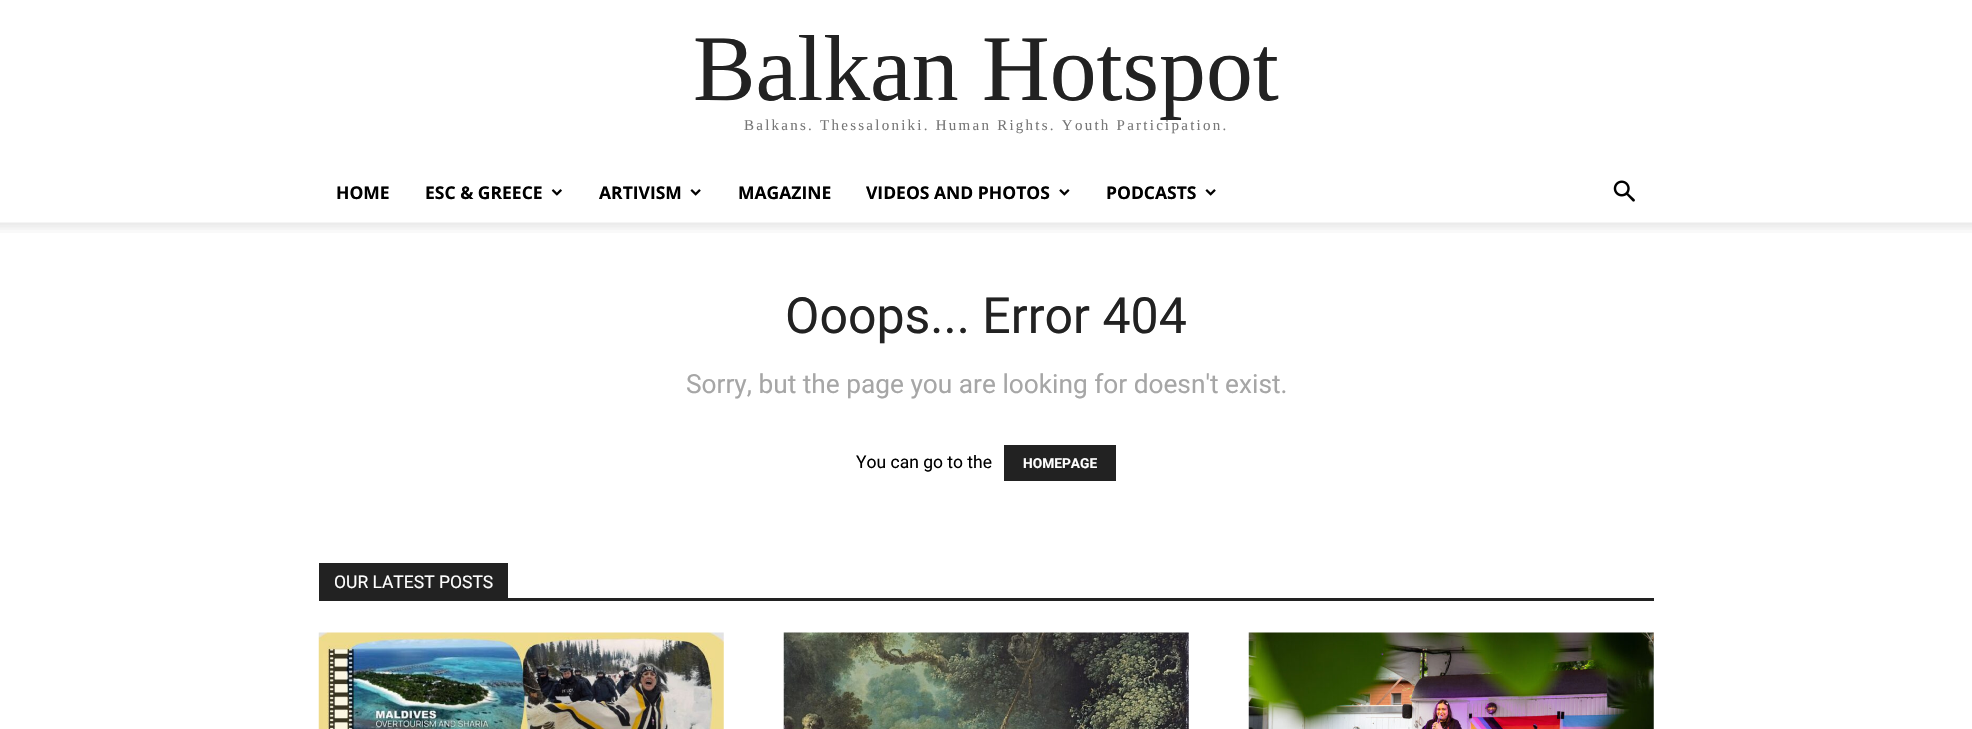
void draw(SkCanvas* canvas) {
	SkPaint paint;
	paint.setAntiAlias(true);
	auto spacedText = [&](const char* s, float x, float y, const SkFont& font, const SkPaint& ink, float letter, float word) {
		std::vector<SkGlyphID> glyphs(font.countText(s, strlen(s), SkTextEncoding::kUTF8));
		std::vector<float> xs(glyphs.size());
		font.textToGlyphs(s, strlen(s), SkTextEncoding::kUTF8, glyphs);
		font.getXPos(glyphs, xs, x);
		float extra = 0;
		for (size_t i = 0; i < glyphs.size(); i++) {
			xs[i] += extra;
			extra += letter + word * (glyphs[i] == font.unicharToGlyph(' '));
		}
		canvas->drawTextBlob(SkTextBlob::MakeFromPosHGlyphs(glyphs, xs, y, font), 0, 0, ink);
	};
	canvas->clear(0xffffffff);
	SkFont f1(fontMgr->matchFamilyStyle("Liberation Serif", SkFontStyle::Normal()), 93.75);
	f1.setSubpixel(true);
	paint.setColor(0xff222222);
	canvas->drawString("Balkan Hotspot", 693, 100, f1, paint);
	SkFont f2(fontMgr->matchFamilyStyle("Liberation Serif", SkFontStyle::Normal()), 15);
	f2.setSubpixel(true);
	paint.setColor(0xff777777);
	spacedText("Balkans. Thessaloniki. Human Rights. Youth Participation.", 744, 130, f2, paint, 2.25, 0);
	SkFont f3(fontMgr->matchFamilyStyle("Open Sans", SkFontStyle::Bold()), 17.5);
	f3.setSubpixel(true);
	paint.setColor(0xff000000);
	canvas->drawString("HOME", 336, 199, f3, paint);
	canvas->drawString("ESC & GREECE", 425, 199, f3, paint);
	canvas->drawImageRect(SkImages::DeferredFromEncodedData(SkData::MakeFromFileName("img1.png")), SkRect::MakeXYWH(551, 189, 11, 7), SkSamplingOptions());
	canvas->drawString("ARTIVISM", 599, 199, f3, paint);
	canvas->drawImageRect(SkImages::DeferredFromEncodedData(SkData::MakeFromFileName("img2.png")), SkRect::MakeXYWH(690, 189, 11, 7), SkSamplingOptions());
	canvas->drawString("MAGAZINE", 738, 199, f3, paint);
	canvas->drawString("VIDEOS AND PHOTOS", 866, 199, f3, paint);
	canvas->drawImageRect(SkImages::DeferredFromEncodedData(SkData::MakeFromFileName("img3.png")), SkRect::MakeXYWH(1059, 189, 11, 7), SkSamplingOptions());
	canvas->drawString("PODCASTS", 1106, 199, f3, paint);
	canvas->drawImageRect(SkImages::DeferredFromEncodedData(SkData::MakeFromFileName("img2.png")), SkRect::MakeXYWH(1205, 189, 11, 7), SkSamplingOptions());
	canvas->drawImageRect(SkImages::DeferredFromEncodedData(SkData::MakeFromFileName("img4.png")), SkRect::MakeXYWH(1613, 180, 22, 22), SkSamplingOptions());
	canvas->drawImageRect(SkImages::DeferredFromEncodedData(SkData::MakeFromFileName("img5.png")), SkRect::MakeXYWH(0, 222, 1972, 11), SkSamplingOptions());
	SkFont f4(fontMgr->matchFamilyStyle("Roboto", SkFontStyle::Normal()), 50);
	f4.setSubpixel(true);
	paint.setColor(0xff222222);
	canvas->drawString("Ooops... Error 404", 785, 333, f4, paint);
	SkFont f5(fontMgr->matchFamilyStyle("Roboto", SkFontStyle::Normal()), 26.25);
	f5.setSubpixel(true);
	paint.setColor(0xffa6a6a6);
	canvas->drawString("Sorry, but the page you are looking for doesn't exist.", 686, 393, f5, paint);
	SkFont f6(fontMgr->matchFamilyStyle("Roboto", SkFontStyle::Normal()), 17.5);
	f6.setSubpixel(true);
	paint.setColor(0xff000000);
	canvas->drawString("You can go to the", 856, 468, f6, paint);
	paint.setColor(0xff222222);
	canvas->drawRect(SkRect::MakeXYWH(1004, 445, 112, 36), paint);
	SkFont f7(fontMgr->matchFamilyStyle("Roboto", SkFontStyle::Bold()), 13.75);
	f7.setSubpixel(true);
	paint.setColor(0xffffffff);
	canvas->drawString("HOMEPAGE", 1023, 468, f7, paint);
	paint.setColor(0xff222222);
	canvas->drawRect(SkRect::MakeXYWH(319, 598, 1335, 3), paint);
	canvas->drawRect(SkRect::MakeXYWH(319, 563, 189, 35), paint);
	paint.setColor(0xffffffff);
	canvas->drawString("OUR LATEST POSTS", 334, 588, f6, paint);
	canvas->drawImageRect(SkImages::DeferredFromEncodedData(SkData::MakeFromFileName("img6.png")), SkRect::MakeXYWH(318, 632, 406, 97), SkSamplingOptions());
	canvas->drawImageRect(SkImages::DeferredFromEncodedData(SkData::MakeFromFileName("img7.png")), SkRect::MakeXYWH(783, 632, 406, 97), SkSamplingOptions());
	canvas->drawImageRect(SkImages::DeferredFromEncodedData(SkData::MakeFromFileName("img8.png")), SkRect::MakeXYWH(1248, 632, 406, 97), SkSamplingOptions());
}
